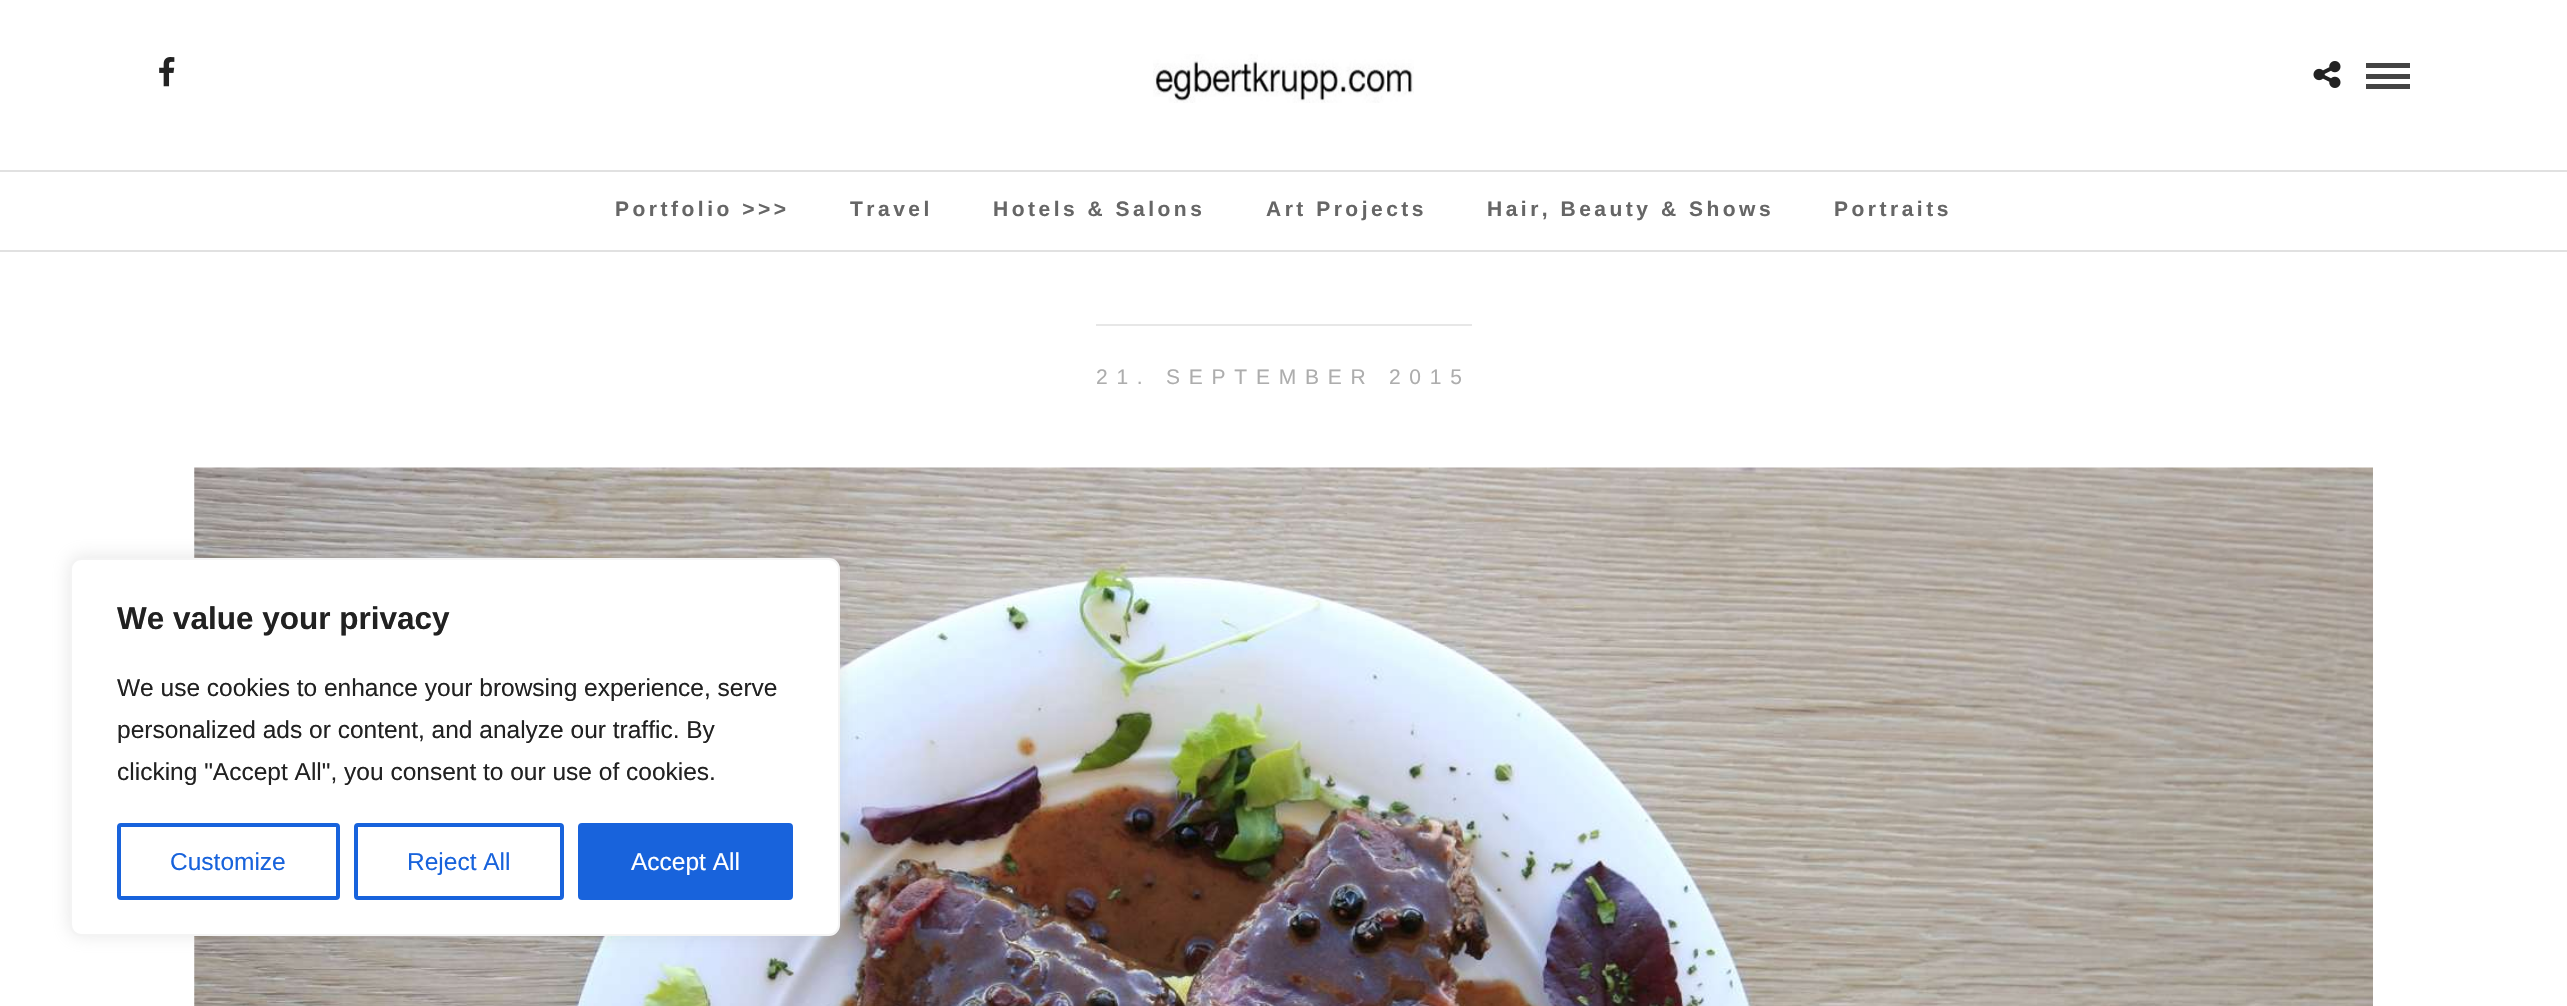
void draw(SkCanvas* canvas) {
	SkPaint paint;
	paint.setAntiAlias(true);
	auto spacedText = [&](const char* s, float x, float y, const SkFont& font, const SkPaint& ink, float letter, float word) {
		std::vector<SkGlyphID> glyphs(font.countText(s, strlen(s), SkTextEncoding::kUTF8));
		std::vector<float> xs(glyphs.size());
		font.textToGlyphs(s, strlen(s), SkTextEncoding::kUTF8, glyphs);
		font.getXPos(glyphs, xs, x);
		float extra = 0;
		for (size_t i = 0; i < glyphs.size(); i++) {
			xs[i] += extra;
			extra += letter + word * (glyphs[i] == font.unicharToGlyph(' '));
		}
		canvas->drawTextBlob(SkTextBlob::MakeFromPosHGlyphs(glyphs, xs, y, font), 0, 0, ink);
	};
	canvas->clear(0xffffffff);
	paint.setColor(0xffe1e1e1);
	canvas->drawRect(SkRect::MakeXYWH(0, 250, 2567, 2), paint);
	canvas->drawRect(SkRect::MakeXYWH(0, 170, 2567, 2), paint);
	canvas->drawImageRect(SkImages::DeferredFromEncodedData(SkData::MakeFromFileName("img1.png")), SkRect::MakeXYWH(159, 57, 16, 30), SkSamplingOptions());
	canvas->drawImageRect(SkImages::DeferredFromEncodedData(SkData::MakeFromFileName("img2.png")), SkRect::MakeXYWH(1153, 54, 261, 49), SkSamplingOptions());
	canvas->drawImageRect(SkImages::DeferredFromEncodedData(SkData::MakeFromFileName("img3.png")), SkRect::MakeXYWH(2313, 61, 28, 27), SkSamplingOptions());
	paint.setColor(0xff444444);
	canvas->drawRect(SkRect::MakeXYWH(2366, 63, 44, 5), paint);
	canvas->drawRect(SkRect::MakeXYWH(2366, 74, 44, 5), paint);
	canvas->drawRect(SkRect::MakeXYWH(2366, 84, 44, 5), paint);
	SkFont f1(fontMgr->matchFamilyStyle("Liberation Sans", SkFontStyle::Bold()), 21);
	f1.setSubpixel(true);
	paint.setColor(0xff666666);
	spacedText("Portfolio >>>", 615, 216, f1, paint, 3.5, 0);
	spacedText("Travel", 850, 216, f1, paint, 3.5, 0);
	spacedText("Hotels & Salons", 993, 216, f1, paint, 3.5, 0);
	spacedText("Art Projects", 1266, 216, f1, paint, 3.5, 0);
	spacedText("Hair, Beauty & Shows", 1487, 216, f1, paint, 3.5, 0);
	spacedText("Portraits", 1834, 216, f1, paint, 3.5, 0);
	paint.setColor(0xffe7e7e7);
	canvas->drawRect(SkRect::MakeXYWH(1096, 324, 376, 2), paint);
	SkFont f2(fontMgr->matchFamilyStyle("Liberation Sans", SkFontStyle::Normal()), 21);
	f2.setSubpixel(true);
	paint.setColor(0xffadadad);
	spacedText("21. SEPTEMBER 2015", 1096, 384, f2, paint, 8.75, 0);
	canvas->drawImageRect(SkImages::DeferredFromEncodedData(SkData::MakeFromFileName("img4.png")), SkRect::MakeXYWH(194, 467, 2179, 539), SkSamplingOptions());
	paint.setColor(0x4dacabab);
	paint.setMaskFilter(SkMaskFilter::MakeBlur(kNormal_SkBlurStyle, 9));
	canvas->drawRoundRect(SkRect::MakeXYWH(70, 557, 770, 378), 11, 11, paint);
	paint.setMaskFilter(nullptr);
	paint.setColor(0xffffffff);
	canvas->drawRoundRect(SkRect::MakeXYWH(71, 559, 768, 376), 10, 10, paint);
	paint.setStroke(true);
	paint.setStrokeWidth(2);
	paint.setColor(0xfff4f4f4);
	canvas->drawRoundRect(SkRect::MakeXYWH(71, 559, 768, 376), 10, 10, paint);
	SkFont f3(fontMgr->matchFamilyStyle("Liberation Sans", SkFontStyle::Bold()), 31.5);
	f3.setSubpixel(true);
	paint.setStroke(false);
	paint.setColor(0xff212121);
	canvas->drawString("We value your privacy", 117, 629, f3, paint);
	SkFont f4(fontMgr->matchFamilyStyle("Liberation Sans", SkFontStyle::Normal()), 24.5);
	f4.setSubpixel(true);
	canvas->drawString("We use cookies to enhance your browsing experience, serve", 117, 696, f4, paint);
	canvas->drawString("personalized ads or content, and analyze our traffic. By", 117, 738, f4, paint);
	canvas->drawString("clicking \"Accept All\", you consent to our use of cookies.", 117, 780, f4, paint);
	paint.setStroke(true);
	paint.setStrokeWidth(4);
	paint.setColor(0xff1863dc);
	canvas->drawRoundRect(SkRect::MakeXYWH(119, 825, 219, 73), 2, 2, paint);
	paint.setStroke(false);
	canvas->drawString("Customize", 170, 870, f4, paint);
	paint.setStroke(true);
	canvas->drawRoundRect(SkRect::MakeXYWH(356, 825, 206, 73), 2, 2, paint);
	paint.setStroke(false);
	canvas->drawString("Reject All", 407, 870, f4, paint);
	canvas->drawRoundRect(SkRect::MakeXYWH(580, 825, 211, 73), 2, 2, paint);
	paint.setStroke(true);
	canvas->drawRoundRect(SkRect::MakeXYWH(580, 825, 211, 73), 2, 2, paint);
	paint.setStroke(false);
	paint.setColor(0xffffffff);
	canvas->drawString("Accept All", 631, 870, f4, paint);
}
